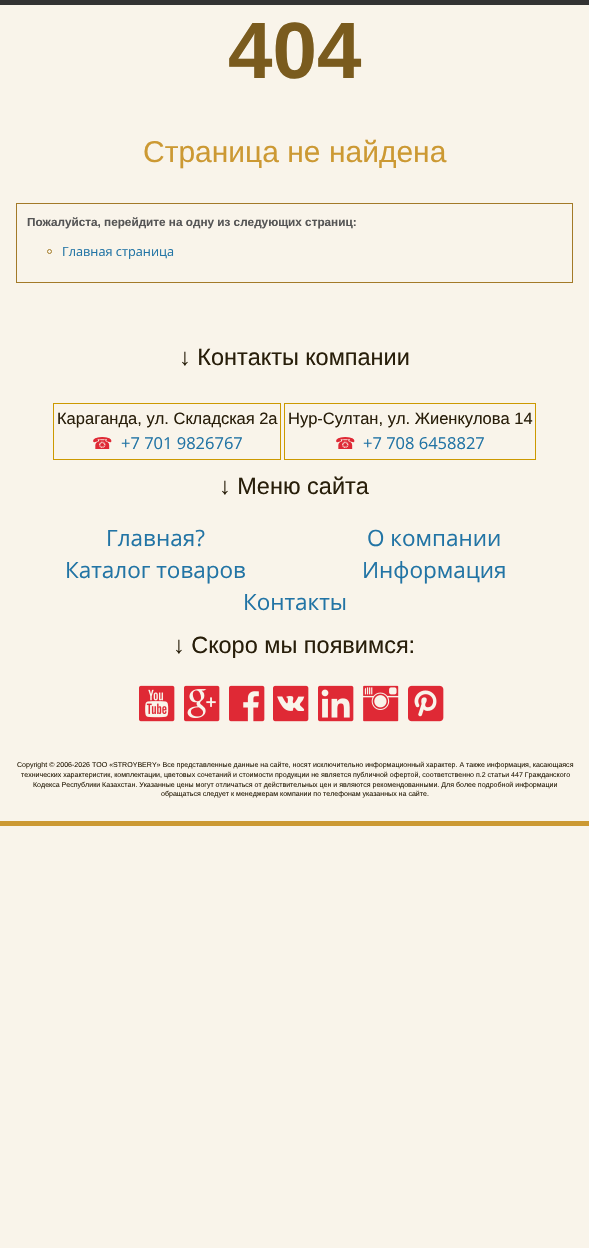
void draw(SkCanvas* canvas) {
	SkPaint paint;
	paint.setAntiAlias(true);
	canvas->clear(0xfff9f4ea);
	paint.setColor(0xff333333);
	canvas->drawRect(SkRect::MakeXYWH(0, 0, 589, 5), paint);
	paint.setColor(0xffcc9933);
	canvas->drawRect(SkRect::MakeXYWH(0, 821, 589, 5), paint);
	SkFont f1(fontMgr->matchFamilyStyle("Liberation Sans", SkFontStyle::Bold()), 80);
	f1.setSubpixel(true);
	paint.setColor(0xff7a5b1e);
	canvas->drawString("404", 228, 78, f1, paint);
	SkFont f2(fontMgr->matchFamilyStyle("Liberation Sans", SkFontStyle::Normal()), 30);
	f2.setSubpixel(true);
	paint.setColor(0xffcc9933);
	canvas->drawString("Страница не найдена", 143, 162, f2, paint);
	paint.setStroke(true);
	paint.setStrokeWidth(1);
	paint.setColor(0xffa37a28);
	canvas->drawRect(SkRect::MakeXYWH(16.5, 203.5, 556, 79), paint);
	SkFont f3(fontMgr->matchFamilyStyle("Liberation Sans", SkFontStyle::Bold()), 11.75);
	f3.setSubpixel(true);
	paint.setStroke(false);
	paint.setColor(0xff555555);
	canvas->drawString("Пожалуйста, перейдите на одну из следующих страниц:", 27, 226, f3, paint);
	paint.setStroke(true);
	paint.setColor(0xffa37a28);
	canvas->drawCircle(49.5, 251.5, 2, paint);
	SkFont f4(fontMgr->matchFamilyStyle("Open Sans", SkFontStyle::Normal()), 12.75);
	f4.setSubpixel(true);
	paint.setStroke(false);
	paint.setColor(0xff2274a5);
	canvas->drawString("Главная страница", 62, 256, f4, paint);
	SkFont f5(fontMgr->matchFamilyStyle("Liberation Sans", SkFontStyle::Normal()), 23.5);
	f5.setSubpixel(true);
	paint.setColor(0xff281e0a);
	canvas->drawString("↓ Контакты компании", 179, 365, f5, paint);
	paint.setStroke(true);
	paint.setColor(0xffcc9900);
	canvas->drawRect(SkRect::MakeXYWH(53.5, 403.5, 227, 56), paint);
	SkFont f6(fontMgr->matchFamilyStyle("Liberation Sans", SkFontStyle::Normal()), 16.5);
	f6.setSubpixel(true);
	paint.setStroke(false);
	paint.setColor(0xff281e0a);
	canvas->drawString("Караганда, ул. Складская 2а", 57, 424, f6, paint);
	SkFont f7(fontMgr->matchFamilyStyle("DejaVu Sans", SkFontStyle::Normal()), 16.5);
	f7.setSubpixel(true);
	paint.setColor(0xffdf2935);
	canvas->drawString("☎", 92, 449, f7, paint);
	SkFont f8(fontMgr->matchFamilyStyle("Open Sans", SkFontStyle::Normal()), 16.5);
	f8.setSubpixel(true);
	paint.setColor(0xff2274a5);
	canvas->drawString("+7 701 9826767", 121, 449, f8, paint);
	paint.setStroke(true);
	paint.setColor(0xffcc9900);
	canvas->drawRect(SkRect::MakeXYWH(284.5, 403.5, 251, 56), paint);
	paint.setStroke(false);
	paint.setColor(0xff281e0a);
	canvas->drawString("Нур-Султан, ул. Жиенкулова 14", 288, 424, f6, paint);
	paint.setColor(0xffdf2935);
	canvas->drawString("☎", 335, 449, f7, paint);
	paint.setColor(0xff2274a5);
	canvas->drawString("+7 708 6458827", 363, 449, f8, paint);
	paint.setColor(0xff281e0a);
	canvas->drawString("↓ Меню сайта", 219, 494, f5, paint);
	SkFont f9(fontMgr->matchFamilyStyle("Open Sans", SkFontStyle::Normal()), 22.5);
	f9.setSubpixel(true);
	paint.setColor(0xff2274a5);
	canvas->drawString("Главная?", 106, 546, f9, paint);
	canvas->drawString("О компании", 367, 546, f9, paint);
	canvas->drawString("Каталог товаров", 65, 578, f9, paint);
	canvas->drawString("Информация", 362, 578, f9, paint);
	canvas->drawString("Контакты", 243, 610, f9, paint);
	paint.setColor(0xff281e0a);
	canvas->drawString("↓ Скоро мы появимся:", 173, 653, f5, paint);
	canvas->drawImageRect(SkImages::DeferredFromEncodedData(SkData::MakeFromFileName("img1.png")), SkRect::MakeXYWH(139, 685, 36, 37), SkSamplingOptions());
	canvas->drawImageRect(SkImages::DeferredFromEncodedData(SkData::MakeFromFileName("img2.png")), SkRect::MakeXYWH(184, 685, 36, 37), SkSamplingOptions());
	canvas->drawImageRect(SkImages::DeferredFromEncodedData(SkData::MakeFromFileName("img3.png")), SkRect::MakeXYWH(229, 685, 36, 37), SkSamplingOptions());
	canvas->drawImageRect(SkImages::DeferredFromEncodedData(SkData::MakeFromFileName("img4.png")), SkRect::MakeXYWH(273, 685, 36, 37), SkSamplingOptions());
	canvas->drawImageRect(SkImages::DeferredFromEncodedData(SkData::MakeFromFileName("img5.png")), SkRect::MakeXYWH(318, 685, 36, 37), SkSamplingOptions());
	canvas->drawImageRect(SkImages::DeferredFromEncodedData(SkData::MakeFromFileName("img6.png")), SkRect::MakeXYWH(363, 685, 36, 37), SkSamplingOptions());
	canvas->drawImageRect(SkImages::DeferredFromEncodedData(SkData::MakeFromFileName("img7.png")), SkRect::MakeXYWH(408, 685, 36, 37), SkSamplingOptions());
	SkFont f10(fontMgr->matchFamilyStyle("Liberation Sans", SkFontStyle::Normal()), 7.05);
	f10.setSubpixel(true);
	canvas->drawString("Copyright © 2006-2026 ТОО «STROYBERY» Все представленные данные на сайте, носят исключительно информационный характер. А также информация, касающаяся", 17, 767, f10, paint);
	canvas->drawString("технических характеристик, комплектации, цветовых сочетаний и стоимости продукции не является публичной офертой, соответственно п.2 статьи 447 Гражданского", 21, 777, f10, paint);
	canvas->drawString("Кодекса Республики Казахстан. Указанные цены могут отличаться от действительных цен и являются рекомендованными. Для более подробной информации", 33, 787, f10, paint);
	canvas->drawString("обращаться следует к менеджерам компании по телефонам указанных на сайте.", 161, 796, f10, paint);
}
